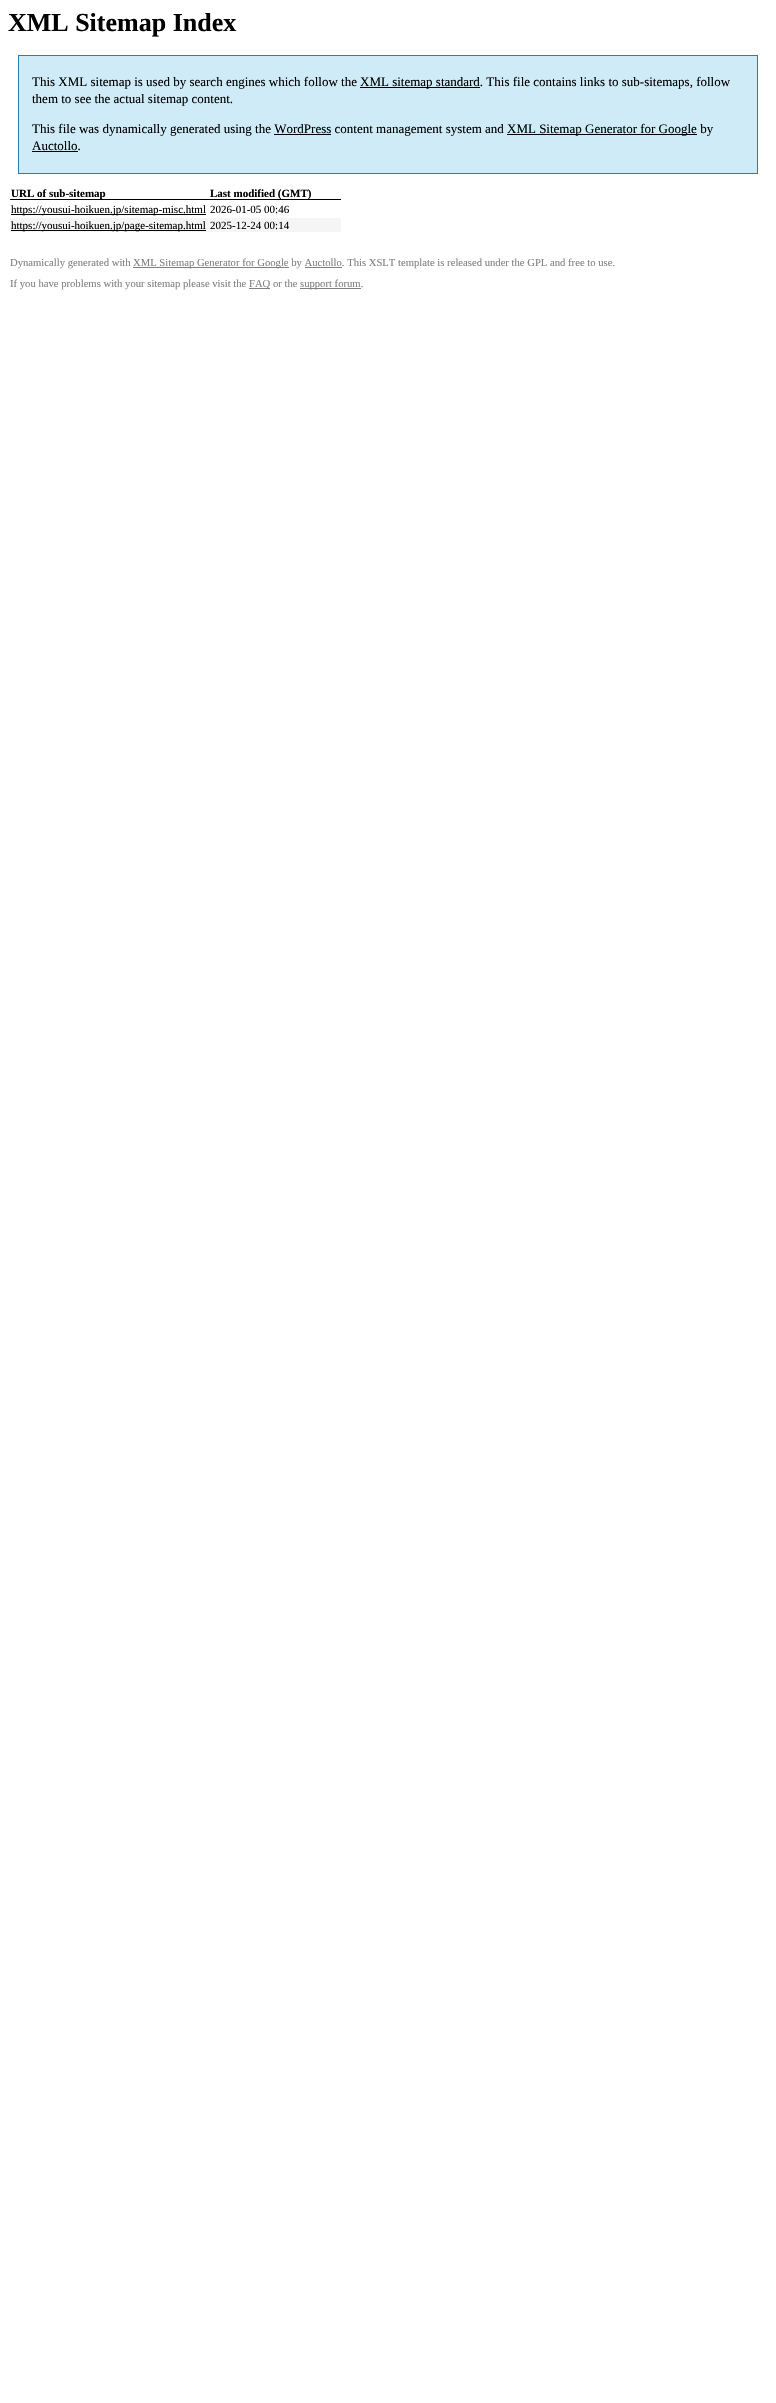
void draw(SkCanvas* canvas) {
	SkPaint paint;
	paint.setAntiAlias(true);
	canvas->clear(0xffffffff);
	SkFont f1(fontMgr->matchFamilyStyle("Liberation Serif", SkFontStyle::Bold()), 26);
	f1.setSubpixel(true);
	paint.setColor(0xff000000);
	canvas->drawString("XML Sitemap Index", 8, 31, f1, paint);
	paint.setColor(0xffcfebf7);
	canvas->drawRect(SkRect::MakeXYWH(18.5, 55.5, 739, 118), paint);
	paint.setStroke(true);
	paint.setStrokeWidth(1);
	paint.setColor(0xff2580b2);
	canvas->drawRect(SkRect::MakeXYWH(18.5, 55.5, 739, 118), paint);
	SkFont f2(fontMgr->matchFamilyStyle("Liberation Serif", SkFontStyle::Normal()), 13);
	f2.setSubpixel(true);
	paint.setStroke(false);
	paint.setColor(0xff000000);
	canvas->drawString("This XML sitemap is used by search engines which follow the", 32, 86, f2, paint);
	canvas->drawRect(SkRect::MakeXYWH(360, 87, 120, 1), paint);
	canvas->drawString("XML sitemap standard. This file contains links to sub-sitemaps, follow", 360, 86, f2, paint);
	canvas->drawString("them to see the actual sitemap content.", 32, 103, f2, paint);
	canvas->drawString("This file was dynamically generated using the WordPress content management system and", 32, 133, f2, paint);
	canvas->drawRect(SkRect::MakeXYWH(507, 134, 190, 1), paint);
	canvas->drawString("XML Sitemap Generator for Google by", 507, 133, f2, paint);
	canvas->drawRect(SkRect::MakeXYWH(274, 134, 57, 1), paint);
	canvas->drawString("Auctollo.", 32, 150, f2, paint);
	canvas->drawRect(SkRect::MakeXYWH(32, 151, 46, 1), paint);
	canvas->drawRect(SkRect::MakeXYWH(10, 199, 331, 1), paint);
	SkFont f3(fontMgr->matchFamilyStyle("Liberation Serif", SkFontStyle::Bold()), 11);
	f3.setSubpixel(true);
	canvas->drawString("URL of sub-sitemap", 11, 197, f3, paint);
	canvas->drawString("Last modified (GMT)", 210, 197, f3, paint);
	canvas->drawRect(SkRect::MakeXYWH(11, 214, 195, 1), paint);
	SkFont f4(fontMgr->matchFamilyStyle("Liberation Serif", SkFontStyle::Normal()), 11);
	f4.setSubpixel(true);
	canvas->drawString("https://yousui-hoikuen.jp/sitemap-misc.html", 11, 213, f4, paint);
	canvas->drawString("2026-01-05 00:46", 210, 213, f4, paint);
	paint.setColor(0xfff5f5f5);
	canvas->drawRect(SkRect::MakeXYWH(10, 218, 331, 14), paint);
	paint.setColor(0xff000000);
	canvas->drawRect(SkRect::MakeXYWH(11, 230, 195, 1), paint);
	canvas->drawString("https://yousui-hoikuen.jp/page-sitemap.html", 11, 229, f4, paint);
	canvas->drawString("2025-12-24 00:14", 210, 229, f4, paint);
	SkFont f5(fontMgr->matchFamilyStyle("Liberation Serif", SkFontStyle::Normal()), 10.65);
	f5.setSubpixel(true);
	paint.setColor(0xff808080);
	canvas->drawString("Dynamically generated with", 10, 266, f5, paint);
	canvas->drawRect(SkRect::MakeXYWH(133, 267, 156, 1), paint);
	canvas->drawString("XML Sitemap Generator for Google by Auctollo. This XSLT template is released under the GPL and free to use.", 133, 266, f5, paint);
	canvas->drawRect(SkRect::MakeXYWH(305, 267, 37, 1), paint);
	canvas->drawString("If you have problems with your sitemap please visit the", 10, 287, f5, paint);
	canvas->drawRect(SkRect::MakeXYWH(249, 288, 21, 1), paint);
	canvas->drawString("FAQ or the", 249, 287, f5, paint);
	canvas->drawRect(SkRect::MakeXYWH(300, 288, 61, 1), paint);
	canvas->drawString("support forum.", 300, 287, f5, paint);
}
